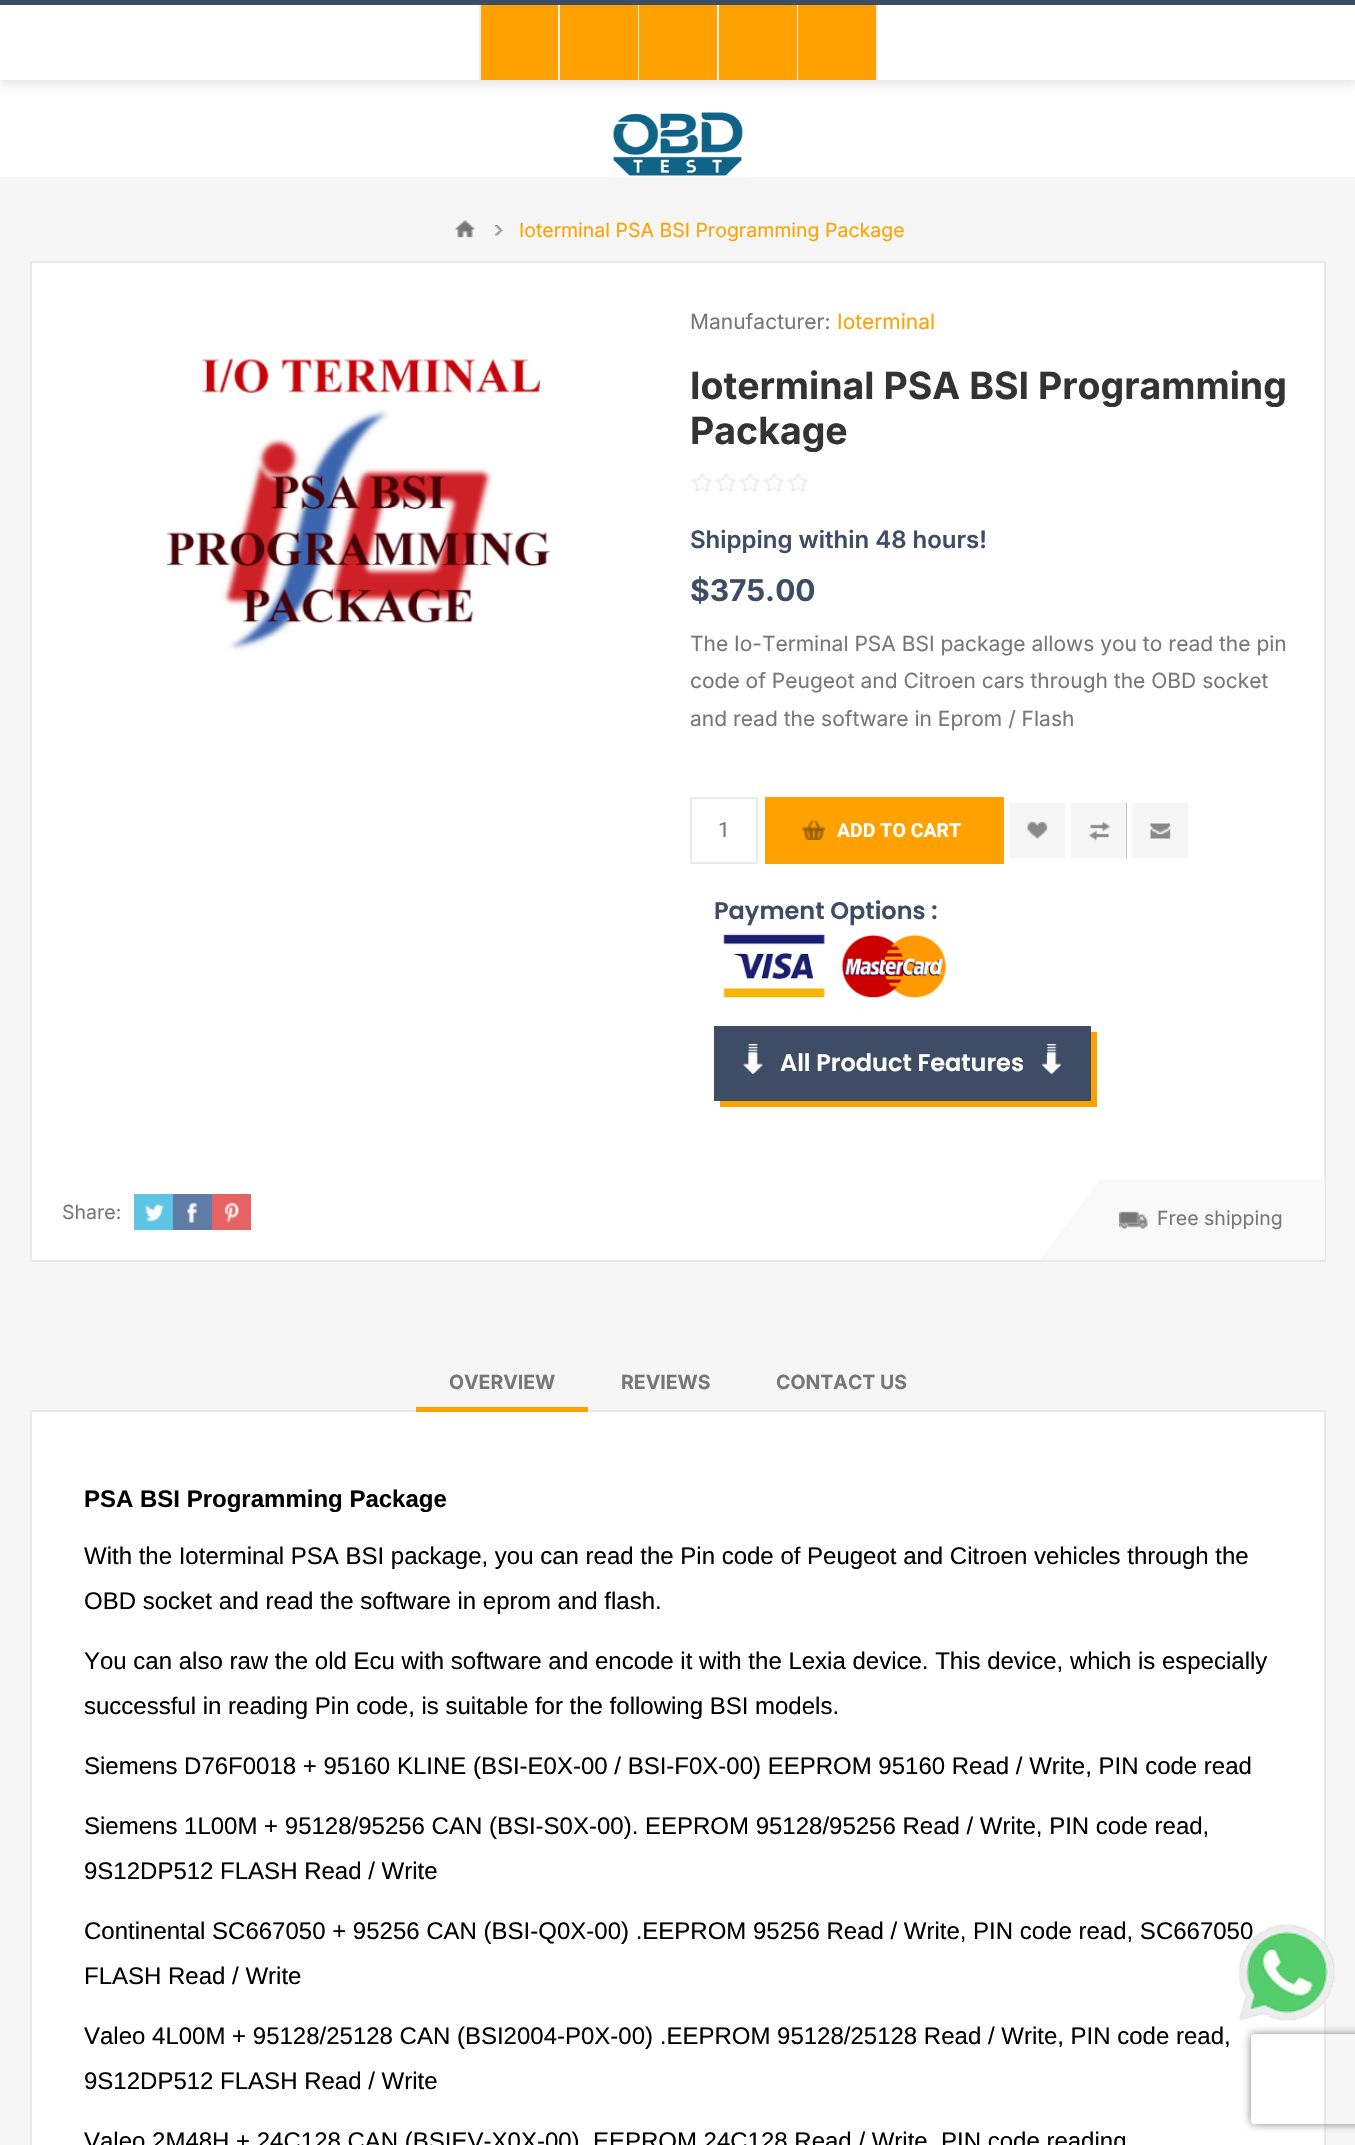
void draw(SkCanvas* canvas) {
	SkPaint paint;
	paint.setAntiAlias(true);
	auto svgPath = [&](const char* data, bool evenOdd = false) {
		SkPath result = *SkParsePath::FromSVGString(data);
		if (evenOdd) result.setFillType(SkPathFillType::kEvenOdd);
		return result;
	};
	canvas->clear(0xfff6f6f6);
	paint.setColor(0xffffffff);
	canvas->drawRect(SkRect::MakeXYWH(0, 80, 1355, 97), paint);
	paint.setColor(0x1a000000);
	paint.setMaskFilter(SkMaskFilter::MakeBlur(kNormal_SkBlurStyle, 4));
	canvas->drawRect(SkRect::MakeXYWH(0, 5, 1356, 79), paint);
	paint.setMaskFilter(nullptr);
	paint.setColor(0xffffffff);
	canvas->drawRect(SkRect::MakeXYWH(0, 5, 1355, 75), paint);
	paint.setColor(0xff3e4c66);
	canvas->drawRect(SkRect::MakeXYWH(0, 0, 1355, 5), paint);
	paint.setColor(0xffffa101);
	canvas->drawRect(SkRect::MakeXYWH(481, 5, 77, 75), paint);
	paint.setColor(0xffeeeeee);
	canvas->drawRect(SkRect::MakeXYWH(558, 5, 2, 75), paint);
	canvas->drawRect(SkRect::MakeXYWH(479, 5, 2, 75), paint);
	paint.setColor(0xffffa101);
	canvas->drawRect(SkRect::MakeXYWH(560, 5, 78, 75), paint);
	paint.setColor(0xffeeeeee);
	canvas->drawRect(SkRect::MakeXYWH(638, 5, 1, 75), paint);
	paint.setColor(0xffffa101);
	canvas->drawRect(SkRect::MakeXYWH(639, 5, 78, 75), paint);
	paint.setColor(0xffeeeeee);
	canvas->drawRect(SkRect::MakeXYWH(717, 5, 2, 75), paint);
	paint.setColor(0xffffa101);
	canvas->drawRect(SkRect::MakeXYWH(719, 5, 78, 75), paint);
	paint.setColor(0xffeeeeee);
	canvas->drawRect(SkRect::MakeXYWH(797, 5, 1, 75), paint);
	paint.setColor(0xffffa101);
	canvas->drawRect(SkRect::MakeXYWH(798, 5, 78, 75), paint);
	paint.setColor(0xffeeeeee);
	canvas->drawRect(SkRect::MakeXYWH(876, 5, 2, 75), paint);
	canvas->drawImageRect(SkImages::DeferredFromEncodedData(SkData::MakeFromFileName("img1.png")), SkRect::MakeXYWH(613, 112, 130, 64), SkSamplingOptions());
	canvas->drawImageRect(SkImages::DeferredFromEncodedData(SkData::MakeFromFileName("img2.png")), SkRect::MakeXYWH(454, 220, 22, 18), SkSamplingOptions());
	canvas->drawImageRect(SkImages::DeferredFromEncodedData(SkData::MakeFromFileName("img3.png")), SkRect::MakeXYWH(495, 225, 8, 11), SkSamplingOptions());
	SkFont f1(fontMgr->matchFamilyStyle("Inter", SkFontStyle::Normal()), 19.5);
	f1.setSubpixel(true);
	paint.setColor(0xffffa101);
	canvas->drawString("Ioterminal PSA BSI Programming Package", 519, 237, f1, paint);
	paint.setColor(0xffffffff);
	canvas->drawRect(SkRect::MakeXYWH(31, 262, 1294, 999), paint);
	paint.setStroke(true);
	paint.setStrokeWidth(2);
	paint.setColor(0xffe9e9e9);
	canvas->drawRect(SkRect::MakeXYWH(31, 262, 1294, 999), paint);
	canvas->drawImageRect(SkImages::DeferredFromEncodedData(SkData::MakeFromFileName("img4.png")), SkRect::MakeXYWH(167, 358, 384, 293), SkSamplingOptions());
	SkFont f2(fontMgr->matchFamilyStyle("Inter", SkFontStyle::Normal()), 21);
	f2.setSubpixel(true);
	paint.setStroke(false);
	paint.setColor(0xff777777);
	canvas->drawString("Manufacturer:", 690, 329, f2, paint);
	paint.setColor(0xffffa101);
	canvas->drawString("Ioterminal", 837, 329, f2, paint);
	SkFont f3(fontMgr->matchFamilyStyle("Inter", SkFontStyle::Bold()), 37.5);
	f3.setSubpixel(true);
	paint.setColor(0xff333333);
	canvas->drawString("Ioterminal PSA BSI Programming", 690, 399, f3, paint);
	canvas->drawString("Package", 690, 444, f3, paint);
	canvas->drawImageRect(SkImages::DeferredFromEncodedData(SkData::MakeFromFileName("img5.png")), SkRect::MakeXYWH(691, 472, 118, 20), SkSamplingOptions());
	SkFont f4(fontMgr->matchFamilyStyle("Inter", SkFontStyle(600, SkFontStyle::kNormal_Width, SkFontStyle::kUpright_Slant)), 24);
	f4.setSubpixel(true);
	paint.setColor(0xff3e4c66);
	canvas->drawString("Shipping within 48 hours!", 690, 548, f4, paint);
	SkFont f5(fontMgr->matchFamilyStyle("Inter", SkFontStyle::Bold()), 30);
	f5.setSubpixel(true);
	canvas->drawString("$375.00", 690, 601, f5, paint);
	paint.setColor(0xff777777);
	canvas->drawString("The Io-Terminal PSA BSI package allows you to read the pin", 690, 651, f2, paint);
	canvas->drawString("code of Peugeot and Citroen cars through the OBD socket", 690, 688, f2, paint);
	canvas->drawString("and read the software in Eprom / Flash", 690, 726, f2, paint);
	paint.setStroke(true);
	paint.setColor(0xffe9e9e9);
	canvas->drawRect(SkRect::MakeXYWH(691, 798, 66, 65), paint);
	SkFont f6(fontMgr->matchFamilyStyle("Roboto", SkFontStyle::Normal()), 21);
	f6.setSubpixel(true);
	paint.setStroke(false);
	paint.setColor(0xff777777);
	canvas->drawString("1", 718, 837, f6, paint);
	paint.setColor(0xffffa101);
	canvas->drawRect(SkRect::MakeXYWH(765, 797, 239, 67), paint);
	canvas->drawImageRect(SkImages::DeferredFromEncodedData(SkData::MakeFromFileName("img6.png")), SkRect::MakeXYWH(802, 820, 24, 20), SkSamplingOptions());
	SkFont f7(fontMgr->matchFamilyStyle("Roboto", SkFontStyle::Bold()), 19.5);
	f7.setSubpixel(true);
	paint.setColor(0xffffffff);
	canvas->drawString("ADD TO CART", 837, 837, f7, paint);
	paint.setColor(0xff888888);
	canvas->drawRect(SkRect::MakeXYWH(1027, 821, 21, 18), paint);
	canvas->drawImageRect(SkImages::DeferredFromEncodedData(SkData::MakeFromFileName("img7.png")), SkRect::MakeXYWH(1009, 802, 56, 56), SkSamplingOptions());
	canvas->drawRect(SkRect::MakeXYWH(1088, 803, 39, 55), paint);
	canvas->drawImageRect(SkImages::DeferredFromEncodedData(SkData::MakeFromFileName("img8.png")), SkRect::MakeXYWH(1071, 802, 56, 56), SkSamplingOptions());
	canvas->drawRect(SkRect::MakeXYWH(1150, 823, 21, 16), paint);
	canvas->drawImageRect(SkImages::DeferredFromEncodedData(SkData::MakeFromFileName("img9.png")), SkRect::MakeXYWH(1132, 802, 56, 56), SkSamplingOptions());
	SkFont f8(fontMgr->matchFamilyStyle("Poppins", SkFontStyle(600, SkFontStyle::kNormal_Width, SkFontStyle::kUpright_Slant)), 24);
	f8.setSubpixel(true);
	paint.setColor(0xff3e4c66);
	canvas->drawString("Payment Options :", 714, 919, f8, paint);
	canvas->drawImageRect(SkImages::DeferredFromEncodedData(SkData::MakeFromFileName("img10.png")), SkRect::MakeXYWH(723, 934, 102, 64), SkSamplingOptions());
	canvas->drawImageRect(SkImages::DeferredFromEncodedData(SkData::MakeFromFileName("img11.png")), SkRect::MakeXYWH(841, 934, 106, 64), SkSamplingOptions());
	paint.setColor(0xffffa101);
	canvas->drawPath(svgPath("M720 1101V1107H1097V1032H1090V1101Z"), paint);
	paint.setColor(0xff3e4c66);
	canvas->drawRect(SkRect::MakeXYWH(714, 1026, 377, 75), paint);
	canvas->drawImageRect(SkImages::DeferredFromEncodedData(SkData::MakeFromFileName("img12.png")), SkRect::MakeXYWH(743, 1044, 20, 30), SkSamplingOptions());
	paint.setColor(0xffffffff);
	canvas->drawString("All Product Features", 780, 1071, f8, paint);
	canvas->drawImageRect(SkImages::DeferredFromEncodedData(SkData::MakeFromFileName("img13.png")), SkRect::MakeXYWH(1042, 1044, 19, 30), SkSamplingOptions());
	paint.setColor(0xff777777);
	canvas->drawString("Share:", 62, 1219, f1, paint);
	paint.setColor(0xff5dc4e6);
	canvas->drawRect(SkRect::MakeXYWH(134, 1194, 39, 36), paint);
	canvas->drawImageRect(SkImages::DeferredFromEncodedData(SkData::MakeFromFileName("img14.png")), SkRect::MakeXYWH(145, 1204, 19, 18), SkSamplingOptions());
	paint.setColor(0xff5f7ca7);
	canvas->drawRect(SkRect::MakeXYWH(173, 1194, 39, 36), paint);
	canvas->drawImageRect(SkImages::DeferredFromEncodedData(SkData::MakeFromFileName("img15.png")), SkRect::MakeXYWH(187, 1202, 10, 21), SkSamplingOptions());
	paint.setColor(0xffe56363);
	canvas->drawRect(SkRect::MakeXYWH(212, 1194, 39, 36), paint);
	canvas->drawImageRect(SkImages::DeferredFromEncodedData(SkData::MakeFromFileName("img16.png")), SkRect::MakeXYWH(224, 1202, 15, 21), SkSamplingOptions());
	paint.setColor(0xfff9f9f9);
	canvas->drawRect(SkRect::MakeXYWH(1100, 1179, 225, 81), paint);
	canvas->drawPath(svgPath("M1100 1179V1260L1070 1220Z"), paint);
	canvas->drawPath(svgPath("M1100 1260H1040L1070 1220Z"), paint);
	canvas->drawImageRect(SkImages::DeferredFromEncodedData(SkData::MakeFromFileName("img17.png")), SkRect::MakeXYWH(1119, 1211, 29, 18), SkSamplingOptions());
	paint.setColor(0xff777777);
	canvas->drawString("Free shipping", 1157, 1225, f1, paint);
	SkFont f9(fontMgr->matchFamilyStyle("Inter", SkFontStyle::Bold()), 19.5);
	f9.setSubpixel(true);
	canvas->drawString("OVERVIEW", 449, 1389, f9, paint);
	paint.setColor(0xffffffff);
	canvas->drawRect(SkRect::MakeXYWH(31, 1411, 1294, 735), paint);
	paint.setStroke(true);
	paint.setColor(0xffe9e9e9);
	canvas->drawRect(SkRect::MakeXYWH(31, 1411, 1294, 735), paint);
	paint.setStroke(false);
	paint.setColor(0xffffa101);
	canvas->drawRect(SkRect::MakeXYWH(416, 1407, 172, 5), paint);
	paint.setColor(0xff777777);
	canvas->drawString("REVIEWS", 621, 1389, f9, paint);
	canvas->drawString("CONTACT US", 776, 1389, f9, paint);
	SkFont f10(fontMgr->matchFamilyStyle("Liberation Sans", SkFontStyle::Bold()), 24);
	f10.setSubpixel(true);
	paint.setColor(0xff000000);
	canvas->drawString("PSA BSI Programming Package", 84, 1507, f10, paint);
	SkFont f11(fontMgr->matchFamilyStyle("Liberation Sans", SkFontStyle::Normal()), 24);
	f11.setSubpixel(true);
	canvas->drawString("With the Ioterminal PSA BSI package, you can read the Pin code of Peugeot and Citroen vehicles through the", 84, 1564, f11, paint);
	canvas->drawString("OBD socket and read the software in eprom and flash.", 84, 1609, f11, paint);
	canvas->drawString("You can also raw the old Ecu with software and encode it with the Lexia device. This device, which is especially", 84, 1669, f11, paint);
	canvas->drawString("successful in reading Pin code, is suitable for the following BSI models.", 84, 1714, f11, paint);
	canvas->drawString("Siemens D76F0018 + 95160 KLINE (BSI-E0X-00 / BSI-F0X-00) EEPROM 95160 Read / Write, PIN code read", 84, 1774, f11, paint);
	canvas->drawString("Siemens 1L00M + 95128/95256 CAN (BSI-S0X-00). EEPROM 95128/95256 Read / Write, PIN code read,", 84, 1834, f11, paint);
	canvas->drawString("9S12DP512 FLASH Read / Write", 84, 1879, f11, paint);
	canvas->drawString("Continental SC667050 + 95256 CAN (BSI-Q0X-00) .EEPROM 95256 Read / Write, PIN code read, SC667050", 84, 1939, f11, paint);
	canvas->drawString("FLASH Read / Write", 84, 1984, f11, paint);
	canvas->drawString("Valeo 4L00M + 95128/25128 CAN (BSI2004-P0X-00) .EEPROM 95128/25128 Read / Write, PIN code read,", 84, 2044, f11, paint);
	canvas->drawString("9S12DP512 FLASH Read / Write", 84, 2089, f11, paint);
	canvas->drawString("Valeo 2M48H + 24C128 CAN (BSIEV-X0X-00). EEPROM 24C128 Read / Write, PIN code reading", 84, 2149, f11, paint);
	canvas->drawImageRect(SkImages::DeferredFromEncodedData(SkData::MakeFromFileName("img18.png")), SkRect::MakeXYWH(1239, 1924, 96, 97), SkSamplingOptions());
	canvas->save();
	canvas->clipPath(svgPath("M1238 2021H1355V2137H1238ZM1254 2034H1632C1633.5 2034 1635 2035.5 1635 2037V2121C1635 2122.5 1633.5 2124 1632 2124H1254C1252.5 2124 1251 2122.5 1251 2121V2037C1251 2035.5 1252.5 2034 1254 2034Z", true), true);
	paint.setColor(0xff808080);
	paint.setMaskFilter(SkMaskFilter::MakeBlur(kNormal_SkBlurStyle, 4));
	canvas->drawRoundRect(SkRect::MakeXYWH(1251, 2034, 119, 90), 3, 3, paint);
	paint.setMaskFilter(nullptr);
	canvas->restore();
}
